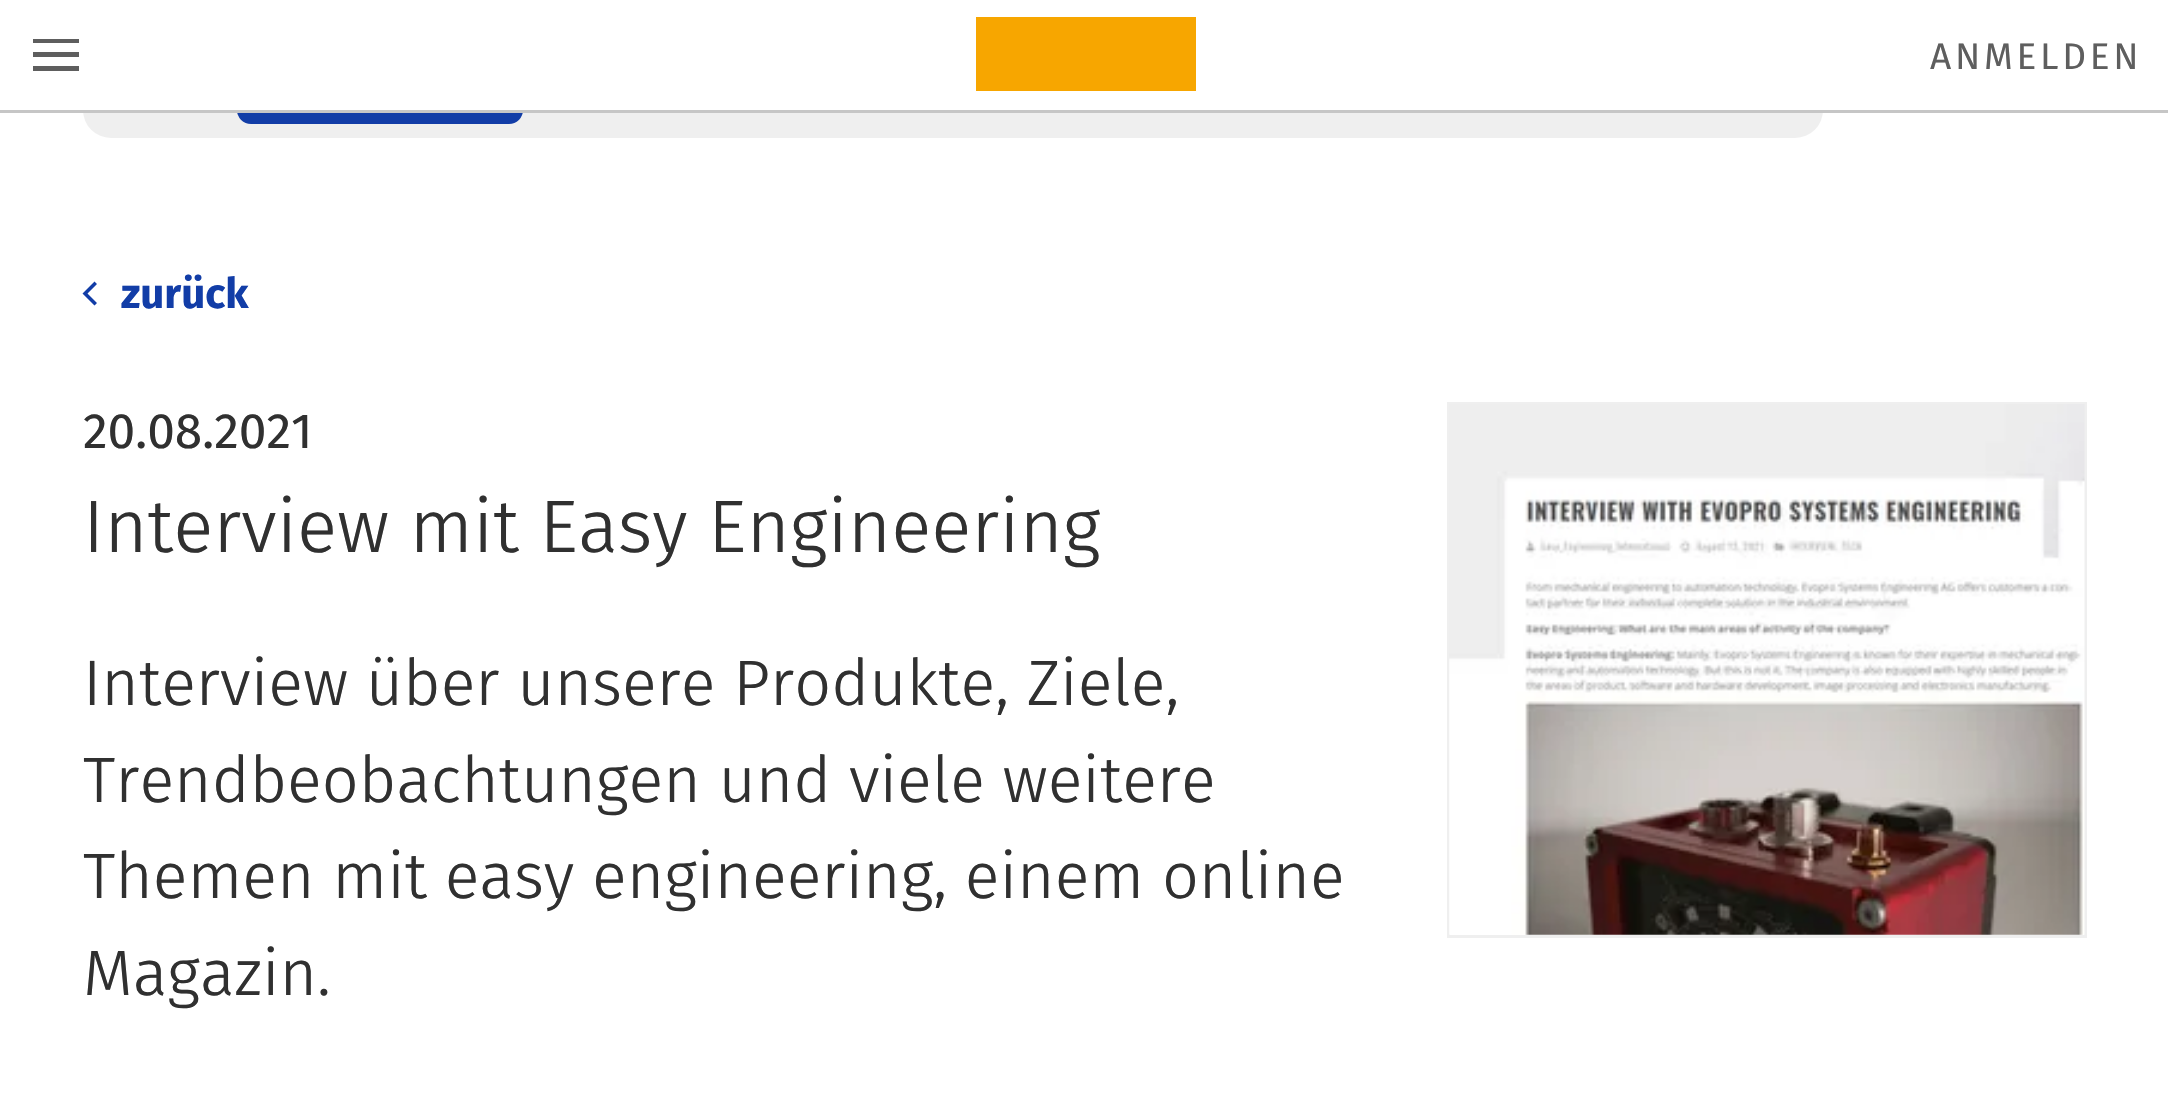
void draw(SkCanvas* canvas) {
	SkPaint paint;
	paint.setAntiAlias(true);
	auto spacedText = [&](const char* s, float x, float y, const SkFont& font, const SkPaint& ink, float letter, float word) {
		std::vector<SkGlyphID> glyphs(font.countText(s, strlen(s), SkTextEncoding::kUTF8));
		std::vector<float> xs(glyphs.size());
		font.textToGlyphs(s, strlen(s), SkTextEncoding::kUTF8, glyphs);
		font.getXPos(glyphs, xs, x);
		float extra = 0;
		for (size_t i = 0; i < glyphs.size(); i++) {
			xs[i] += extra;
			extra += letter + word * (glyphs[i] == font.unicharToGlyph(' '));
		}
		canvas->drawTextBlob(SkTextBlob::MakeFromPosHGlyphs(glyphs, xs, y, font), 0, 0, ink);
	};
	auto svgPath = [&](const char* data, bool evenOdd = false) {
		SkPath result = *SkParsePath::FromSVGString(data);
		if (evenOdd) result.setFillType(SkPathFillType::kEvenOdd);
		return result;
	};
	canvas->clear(0xffffffff);
	paint.setColor(0xffefefef);
	canvas->drawRoundRect(SkRect::MakeXYWH(83, 33, 1740, 105), 28, 28, paint);
	paint.setColor(0xff123da7);
	canvas->drawRoundRect(SkRect::MakeXYWH(237, 47, 286, 77), 14, 14, paint);
	paint.setColor(0xffffffff);
	canvas->drawRect(SkRect::MakeXYWH(83, 33, 1740, 77), paint);
	paint.setColor(0xffc6c6c6);
	canvas->drawRect(SkRect::MakeXYWH(0, 110, 2168, 3), paint);
	paint.setColor(0xff5e5e5e);
	canvas->drawPath(svgPath("M33 57V52H79V57ZM33 43V39H79V43ZM33 71V66H79V71Z"), paint);
	paint.setColor(0xfff7a600);
	canvas->drawRect(SkRect::MakeXYWH(976, 17, 220, 74), paint);
	SkFont f1(fontMgr->matchFamilyStyle("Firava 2", SkFontStyle::Normal()), 37);
	f1.setSubpixel(true);
	paint.setColor(0xff5e5e5e);
	spacedText("ANMELDEN", 1930, 69, f1, paint, 3.75, 0);
	paint.setColor(0xff123da7);
	canvas->drawPath(svgPath("M97 284L87.5 293.5L97 303L94.5 305.5L82.5 293.5L94.5 281.5Z"), paint);
	SkFont f2(fontMgr->matchFamilyStyle("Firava", SkFontStyle::Bold()), 42);
	f2.setSubpixel(true);
	canvas->drawString("zurück", 121, 308, f2, paint);
	SkFont f3(fontMgr->matchFamilyStyle("Firava", SkFontStyle::Normal()), 49.5);
	f3.setSubpixel(true);
	paint.setColor(0xff303030);
	canvas->drawString("20.08.2021", 83, 448, f3, paint);
	SkFont f4(fontMgr->matchFamilyStyle("Firava", SkFontStyle(300, SkFontStyle::kNormal_Width, SkFontStyle::kUpright_Slant)), 74.25);
	f4.setSubpixel(true);
	canvas->drawString("Interview mit Easy Engineering", 83, 552, f4, paint);
	SkFont f5(fontMgr->matchFamilyStyle("Firava", SkFontStyle(300, SkFontStyle::kNormal_Width, SkFontStyle::kUpright_Slant)), 64.3);
	f5.setSubpixel(true);
	canvas->drawString("Interview über unsere Produkte, Ziele,", 83, 705, f5, paint);
	canvas->drawString("Trendbeobachtungen und viele weitere", 83, 802, f5, paint);
	canvas->drawString("Themen mit easy engineering, einem online", 83, 898, f5, paint);
	canvas->drawString("Magazin.", 83, 995, f5, paint);
	paint.setStroke(true);
	paint.setStrokeWidth(3);
	paint.setColor(0xffefefef);
	canvas->drawRect(SkRect::MakeXYWH(1448.5, 403.5, 637, 533), paint);
	canvas->drawImageRect(SkImages::DeferredFromEncodedData(SkData::MakeFromFileName("img1.png")), SkRect::MakeXYWH(1449, 404, 636, 531), SkSamplingOptions());
}
